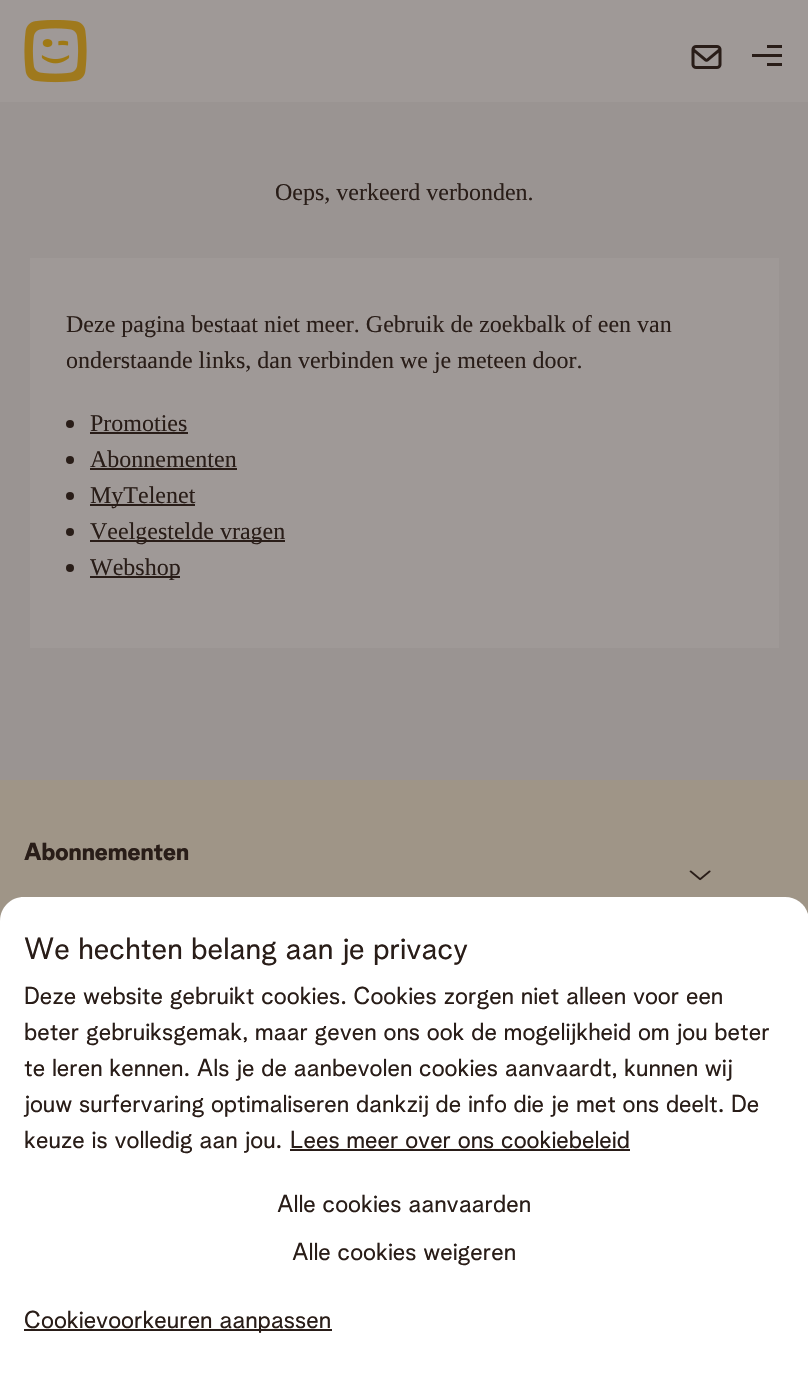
void draw(SkCanvas* canvas) {
	SkPaint paint;
	paint.setAntiAlias(true);
	auto svgPath = [&](const char* data, bool evenOdd = false) {
		SkPath result = *SkParsePath::FromSVGString(data);
		if (evenOdd) result.setFillType(SkPathFillType::kEvenOdd);
		return result;
	};
	canvas->clear(0xff9f9997);
	canvas->drawImageRect(SkImages::DeferredFromEncodedData(SkData::MakeFromFileName("img1.png")), SkRect::MakeXYWH(24, 20, 63, 63), SkSamplingOptions());
	canvas->drawImageRect(SkImages::DeferredFromEncodedData(SkData::MakeFromFileName("img2.png")), SkRect::MakeXYWH(691, 45, 31, 24), SkSamplingOptions());
	paint.setColor(0xff291d18);
	canvas->drawRect(SkRect::MakeXYWH(752, 54, 30, 3), paint);
	canvas->drawRect(SkRect::MakeXYWH(767, 45, 15, 3), paint);
	canvas->drawRect(SkRect::MakeXYWH(767, 63, 15, 3), paint);
	paint.setColor(0xff9a9492);
	canvas->drawRect(SkRect::MakeXYWH(0, 102, 808, 678), paint);
	SkFont f1(fontMgr->matchFamilyStyle("Liberation Serif", SkFontStyle::Normal()), 24);
	f1.setSubpixel(true);
	paint.setColor(0xff291d18);
	canvas->drawString("Oeps, verkeerd verbonden.", 275, 200, f1, paint);
	paint.setColor(0xff9f9997);
	canvas->drawRect(SkRect::MakeXYWH(30, 258, 749, 390), paint);
	paint.setColor(0xff291d18);
	canvas->drawString("Deze pagina bestaat niet meer. Gebruik de zoekbalk of een van", 66, 332, f1, paint);
	canvas->drawString("onderstaande links, dan verbinden we je meteen door.", 66, 368, f1, paint);
	canvas->drawCircle(70, 424, 4, paint);
	canvas->drawString("Promoties", 90, 431, f1, paint);
	canvas->drawRect(SkRect::MakeXYWH(90, 432, 98, 2), paint);
	canvas->drawCircle(70, 460, 4, paint);
	canvas->drawString("Abonnementen", 90, 467, f1, paint);
	canvas->drawRect(SkRect::MakeXYWH(90, 468, 147, 2), paint);
	canvas->drawCircle(70, 496, 4, paint);
	canvas->drawRect(SkRect::MakeXYWH(90, 504, 105, 2), paint);
	canvas->drawString("MyTelenet", 90, 503, f1, paint);
	canvas->drawCircle(70, 532, 4, paint);
	canvas->drawRect(SkRect::MakeXYWH(90, 540, 195, 2), paint);
	canvas->drawString("Veelgestelde vragen", 90, 539, f1, paint);
	canvas->drawCircle(70, 568, 4, paint);
	canvas->drawRect(SkRect::MakeXYWH(90, 576, 90, 2), paint);
	canvas->drawString("Webshop", 90, 575, f1, paint);
	paint.setColor(0xff9f9587);
	canvas->drawRect(SkRect::MakeXYWH(0, 780, 808, 141), paint);
	SkFont f2(fontMgr->matchFamilyStyle("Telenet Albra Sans", SkFontStyle::Bold()), 24);
	f2.setSubpixel(true);
	paint.setColor(0xff291d18);
	canvas->drawString("Abonnementen", 24, 860, f2, paint);
	canvas->drawImageRect(SkImages::DeferredFromEncodedData(SkData::MakeFromFileName("img3.png")), SkRect::MakeXYWH(689, 870, 22, 11), SkSamplingOptions());
	paint.setColor(0xffffffff);
	canvas->drawPath(svgPath("M24 897H785C798.5 897 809 907.5 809 921V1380H0V921C0 907.5 10.5 897 24 897Z"), paint);
	SkFont f3(fontMgr->matchFamilyStyle("Telenet Albra Sans", SkFontStyle::Normal()), 30);
	f3.setSubpixel(true);
	paint.setColor(0xff291d18);
	canvas->drawString("We hechten belang aan je privacy", 24, 959, f3, paint);
	SkFont f4(fontMgr->matchFamilyStyle("Telenet Albra Sans", SkFontStyle::Normal()), 24);
	f4.setSubpixel(true);
	canvas->drawString("Deze website gebruikt cookies. Cookies zorgen niet alleen voor een", 24, 1004, f4, paint);
	canvas->drawString("beter gebruiksgemak, maar geven ons ook de mogelijkheid om jou beter", 24, 1040, f4, paint);
	canvas->drawString("te leren kennen. Als je de aanbevolen cookies aanvaardt, kunnen wij", 24, 1076, f4, paint);
	canvas->drawString("jouw surfervaring optimaliseren dankzij de info die je met ons deelt. De", 24, 1112, f4, paint);
	canvas->drawString("keuze is volledig aan jou.", 24, 1148, f4, paint);
	canvas->drawString("Lees meer over ons cookiebeleid", 290, 1148, f4, paint);
	canvas->drawRect(SkRect::MakeXYWH(290, 1149, 340, 2), paint);
	canvas->drawString("Alle cookies aanvaarden", 277, 1212, f4, paint);
	canvas->drawString("Alle cookies weigeren", 292, 1260, f4, paint);
	canvas->drawRect(SkRect::MakeXYWH(24, 1329, 308, 2), paint);
	canvas->drawString("Cookievoorkeuren aanpassen", 24, 1328, f4, paint);
}
